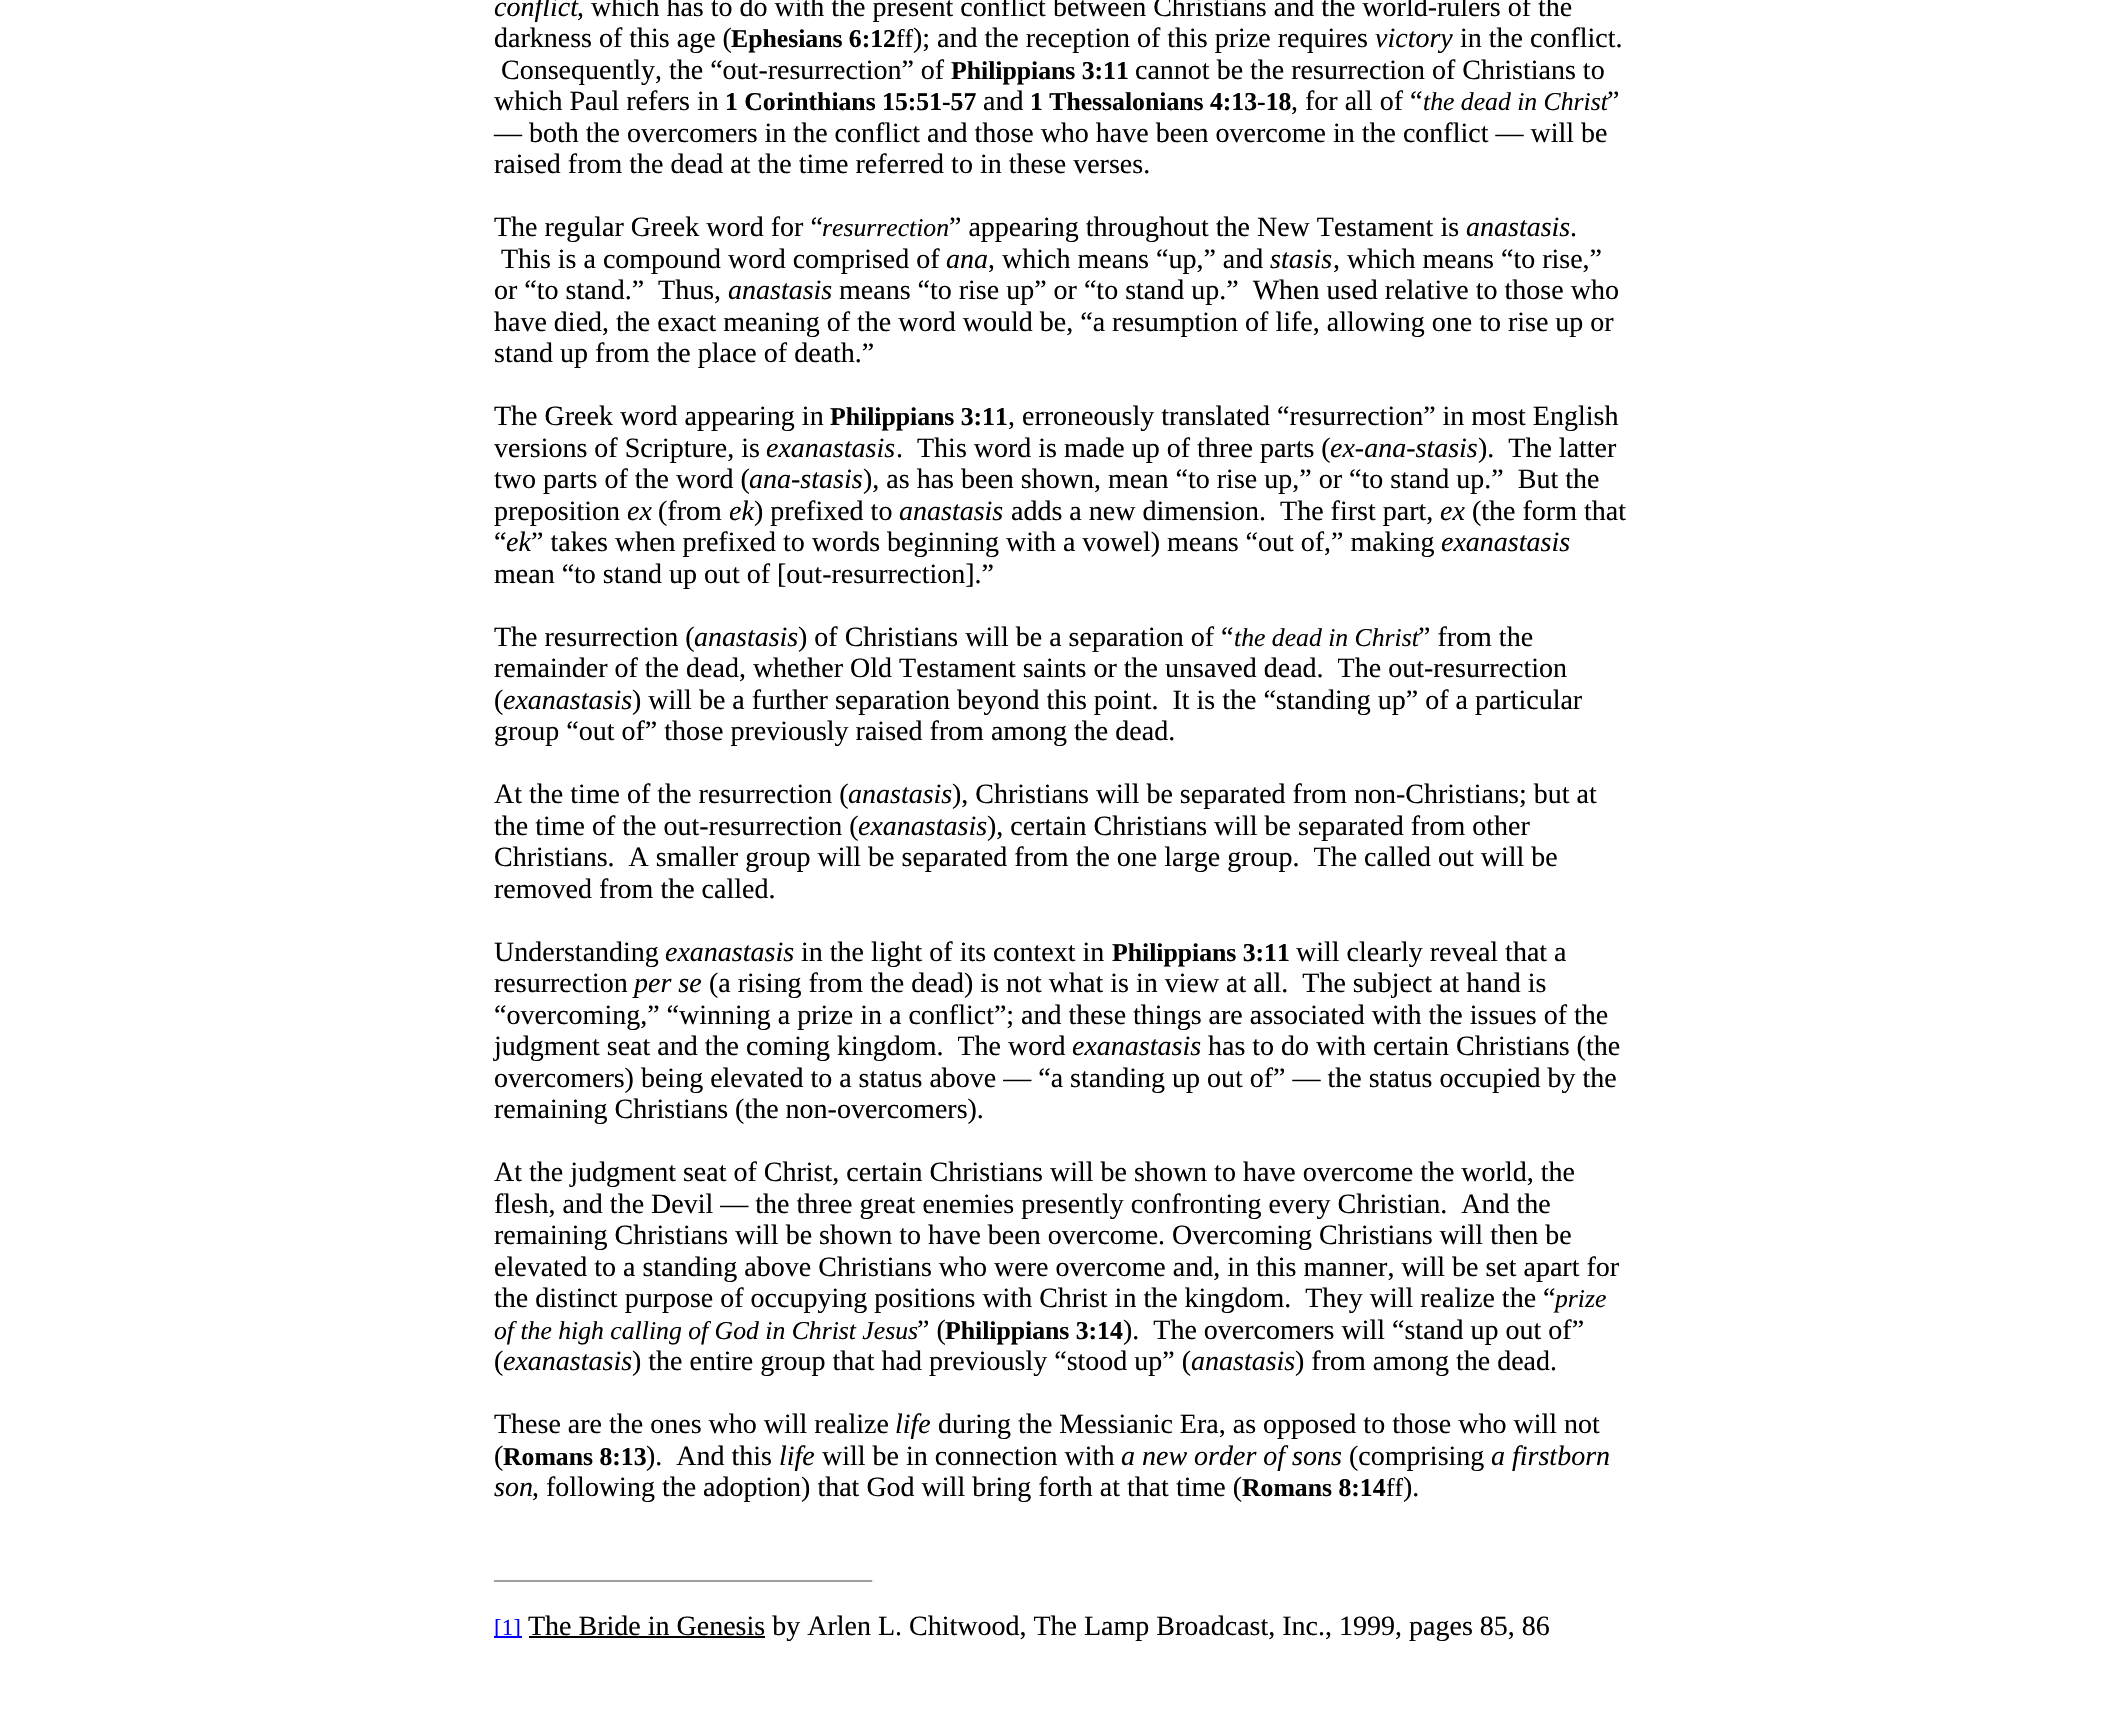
void draw(SkCanvas* canvas) {
	SkPaint paint;
	paint.setAntiAlias(true);
	canvas->clear(0xffffffff);
	SkFont f1(fontMgr->matchFamilyStyle("Liberation Serif", SkFontStyle::Italic()), 28);
	f1.setSubpixel(true);
	paint.setColor(0xff000000);
	canvas->drawString("conflict", 494, 16, f1, paint);
	SkFont f2(fontMgr->matchFamilyStyle("Liberation Serif", SkFontStyle::Normal()), 28);
	f2.setSubpixel(true);
	canvas->drawString(", which has to do with the present conflict between Christians and the world-rulers of the", 577, 16, f2, paint);
	canvas->drawString("darkness of this age (", 494, 47, f2, paint);
	SkFont f3(fontMgr->matchFamilyStyle("Liberation Serif", SkFontStyle::Bold()), 25.7);
	f3.setSubpixel(true);
	canvas->drawString("Ephesians 6:12", 731, 47, f3, paint);
	SkFont f4(fontMgr->matchFamilyStyle("Liberation Serif", SkFontStyle::Normal()), 25.7);
	f4.setSubpixel(true);
	canvas->drawString("ff", 896, 47, f4, paint);
	canvas->drawString("); and the reception of this prize requires", 913, 47, f2, paint);
	canvas->drawString("victory", 1375, 47, f1, paint);
	canvas->drawString("in the conflict.", 1460, 47, f2, paint);
	canvas->drawString("Consequently, the “out-resurrection” of", 501, 79, f2, paint);
	canvas->drawString("Philippians 3:11", 951, 79, f3, paint);
	canvas->drawString("cannot be the resurrection of Christians to", 1135, 79, f2, paint);
	canvas->drawString("which Paul refers in", 494, 110, f2, paint);
	canvas->drawString("1 Corinthians 15:51-57", 725, 110, f3, paint);
	canvas->drawString("and", 983, 110, f2, paint);
	canvas->drawString("1 Thessalonians 4:13-18", 1030, 110, f3, paint);
	canvas->drawString(", for all of “", 1291, 110, f2, paint);
	SkFont f5(fontMgr->matchFamilyStyle("Liberation Serif", SkFontStyle::Italic()), 25.7);
	f5.setSubpixel(true);
	canvas->drawString("the dead in Christ", 1423, 110, f5, paint);
	canvas->drawString("”", 1607, 110, f2, paint);
	canvas->drawString("— both the overcomers in the conflict and those who have been overcome in the conflict — will be", 494, 142, f2, paint);
	canvas->drawString("raised from the dead at the time referred to in these verses.", 494, 173, f2, paint);
	canvas->drawString("The regular Greek word for “", 494, 236, f2, paint);
	canvas->drawString("resurrection", 822, 236, f5, paint);
	canvas->drawString("” appearing throughout the New Testament is", 949, 236, f2, paint);
	canvas->drawString("anastasis", 1466, 236, f1, paint);
	canvas->drawString(".", 1570, 236, f2, paint);
	canvas->drawString("This is a compound word comprised of", 501, 268, f2, paint);
	canvas->drawString("ana", 946, 268, f1, paint);
	canvas->drawString(", which means “up,” and", 988, 268, f2, paint);
	canvas->drawString("stasis", 1270, 268, f1, paint);
	canvas->drawString(", which means “to rise,”", 1333, 268, f2, paint);
	canvas->drawString("or “to stand.”  Thus,", 494, 299, f2, paint);
	canvas->drawString("anastasis", 728, 299, f1, paint);
	canvas->drawString("means “to rise up” or “to stand up.”  When used relative to those who", 839, 299, f2, paint);
	canvas->drawString("have died, the exact meaning of the word would be, “a resumption of life, allowing one to rise up or", 494, 331, f2, paint);
	canvas->drawString("stand up from the place of death.”", 494, 362, f2, paint);
	canvas->drawString("The Greek word appearing in", 494, 425, f2, paint);
	canvas->drawString("Philippians 3:11", 830, 425, f3, paint);
	canvas->drawString(", erroneously translated “resurrection” in most English", 1008, 425, f2, paint);
	canvas->drawString("versions of Scripture, is", 494, 457, f2, paint);
	canvas->drawString("exanastasis", 766, 457, f1, paint);
	canvas->drawString(".  This word is made up of three parts (", 896, 457, f2, paint);
	canvas->drawString("ex-ana-stasis", 1330, 457, f1, paint);
	canvas->drawString(").  The latter", 1478, 457, f2, paint);
	canvas->drawString("two parts of the word (", 494, 488, f2, paint);
	canvas->drawString("ana-stasis", 749, 488, f1, paint);
	canvas->drawString("), as has been shown, mean “to rise up,” or “to stand up.”  But the", 863, 488, f2, paint);
	canvas->drawString("preposition", 494, 520, f2, paint);
	canvas->drawString("ex", 627, 520, f1, paint);
	canvas->drawString("(from", 658, 520, f2, paint);
	canvas->drawString("ek", 729, 520, f1, paint);
	canvas->drawString(") prefixed to", 754, 520, f2, paint);
	canvas->drawString("anastasis", 899, 520, f1, paint);
	canvas->drawString("adds a new dimension.  The first part,", 1011, 520, f2, paint);
	canvas->drawString("ex", 1440, 520, f1, paint);
	canvas->drawString("(the form that", 1472, 520, f2, paint);
	canvas->drawString("“", 494, 551, f2, paint);
	canvas->drawString("ek", 506, 551, f1, paint);
	canvas->drawString("” takes when prefixed to words beginning with a vowel) means “out of,” making", 531, 551, f2, paint);
	canvas->drawString("exanastasis", 1441, 551, f1, paint);
	canvas->drawString("mean “to stand up out of [out-resurrection].”", 494, 583, f2, paint);
	canvas->drawString("The resurrection (", 494, 646, f2, paint);
	canvas->drawString("anastasis", 694, 646, f1, paint);
	canvas->drawString(") of Christians will be a separation of “", 798, 646, f2, paint);
	canvas->drawString("the dead in Christ", 1234, 646, f5, paint);
	canvas->drawString("” from the", 1418, 646, f2, paint);
	canvas->drawString("remainder of the dead, whether Old Testament saints or the unsaved dead.  The out-resurrection", 494, 677, f2, paint);
	canvas->drawString("(", 494, 709, f2, paint);
	canvas->drawString("exanastasis", 503, 709, f1, paint);
	canvas->drawString(") will be a further separation beyond this point.  It is the “standing up” of a particular", 632, 709, f2, paint);
	canvas->drawString("group “out of” those previously raised from among the dead.", 494, 740, f2, paint);
	canvas->drawString("At the time of the resurrection (", 494, 803, f2, paint);
	canvas->drawString("anastasis", 848, 803, f1, paint);
	canvas->drawString("), Christians will be separated from non-Christians; but at", 952, 803, f2, paint);
	canvas->drawString("the time of the out-resurrection (", 494, 835, f2, paint);
	canvas->drawString("exanastasis", 858, 835, f1, paint);
	canvas->drawString("), certain Christians will be separated from other", 987, 835, f2, paint);
	canvas->drawString("Christians.  A smaller group will be separated from the one large group.  The called out will be", 494, 866, f2, paint);
	canvas->drawString("removed from the called.", 494, 898, f2, paint);
	canvas->drawString("Understanding", 494, 961, f2, paint);
	canvas->drawString("exanastasis", 665, 961, f1, paint);
	canvas->drawString("in the light of its context in", 801, 961, f2, paint);
	canvas->drawString("Philippians 3:11", 1112, 961, f3, paint);
	canvas->drawString("will clearly reveal that a", 1296, 961, f2, paint);
	canvas->drawString("resurrection", 494, 992, f2, paint);
	canvas->drawString("per se", 634, 992, f1, paint);
	canvas->drawString("(a rising from the dead) is not what is in view at all.  The subject at hand is", 709, 992, f2, paint);
	canvas->drawString("“overcoming,” “winning a prize in a conflict”; and these things are associated with the issues of the", 494, 1024, f2, paint);
	canvas->drawString("judgment seat and the coming kingdom.  The word", 494, 1055, f2, paint);
	canvas->drawString("exanastasis", 1072, 1055, f1, paint);
	canvas->drawString("has to do with certain Christians (the", 1208, 1055, f2, paint);
	canvas->drawString("overcomers) being elevated to a status above — “a standing up out of” — the status occupied by the", 494, 1087, f2, paint);
	canvas->drawString("remaining Christians (the non-overcomers).", 494, 1118, f2, paint);
	canvas->drawString("At the judgment seat of Christ, certain Christians will be shown to have overcome the world, the", 494, 1181, f2, paint);
	canvas->drawString("flesh, and the Devil — the three great enemies presently confronting every Christian.  And the", 494, 1213, f2, paint);
	canvas->drawString("remaining Christians will be shown to have been overcome. Overcoming Christians will then be", 494, 1244, f2, paint);
	canvas->drawString("elevated to a standing above Christians who were overcome and, in this manner, will be set apart for", 494, 1276, f2, paint);
	canvas->drawString("the distinct purpose of occupying positions with Christ in the kingdom.  They will realize the “", 494, 1307, f2, paint);
	canvas->drawString("prize", 1555, 1307, f5, paint);
	canvas->drawString("of the high calling of God in Christ Jesus", 494, 1339, f5, paint);
	canvas->drawString("” (", 917, 1339, f2, paint);
	canvas->drawString("Philippians 3:14", 945, 1339, f3, paint);
	canvas->drawString(").  The overcomers will “stand up out of”", 1123, 1339, f2, paint);
	canvas->drawString("(", 494, 1370, f2, paint);
	canvas->drawString("exanastasis", 503, 1370, f1, paint);
	canvas->drawString(") the entire group that had previously “stood up” (", 632, 1370, f2, paint);
	canvas->drawString("anastasis", 1191, 1370, f1, paint);
	canvas->drawString(") from among the dead.", 1295, 1370, f2, paint);
	canvas->drawString("These are the ones who will realize", 494, 1433, f2, paint);
	canvas->drawString("life", 895, 1433, f1, paint);
	canvas->drawString("during the Messianic Era, as opposed to those who will not", 938, 1433, f2, paint);
	canvas->drawString("(", 494, 1465, f2, paint);
	canvas->drawString("Romans 8:13", 503, 1465, f3, paint);
	canvas->drawString(").  And this", 646, 1465, f2, paint);
	canvas->drawString("life", 779, 1465, f1, paint);
	canvas->drawString("will be in connection with", 822, 1465, f2, paint);
	canvas->drawString("a new order of sons", 1121, 1465, f1, paint);
	canvas->drawString("(comprising", 1349, 1465, f2, paint);
	canvas->drawString("a firstborn", 1491, 1465, f1, paint);
	canvas->drawString("son", 494, 1496, f1, paint);
	canvas->drawString(", following the adoption) that God will bring forth at that time (", 532, 1496, f2, paint);
	canvas->drawString("Romans 8:14", 1242, 1496, f3, paint);
	canvas->drawString("ff", 1386, 1496, f4, paint);
	canvas->drawString(").", 1403, 1496, f2, paint);
	paint.setColor(0xff9f9f9f);
	canvas->drawRect(SkRect::MakeXYWH(494, 1580, 379, 2), paint);
	paint.setColor(0xffeeeeee);
	canvas->drawRect(SkRect::MakeXYWH(872, 1580, 2, 2), paint);
	paint.setColor(0xff0000ff);
	canvas->drawRect(SkRect::MakeXYWH(494, 1636, 28, 2), paint);
	SkFont f6(fontMgr->matchFamilyStyle("Liberation Serif", SkFontStyle::Normal()), 23);
	f6.setSubpixel(true);
	canvas->drawString("[1]", 494, 1635, f6, paint);
	paint.setColor(0xff000000);
	canvas->drawRect(SkRect::MakeXYWH(529, 1636, 236, 2), paint);
	canvas->drawString("The Bride in Genesis by Arlen L. Chitwood, The Lamp Broadcast, Inc., 1999, pages 85, 86", 528, 1635, f2, paint);
}
